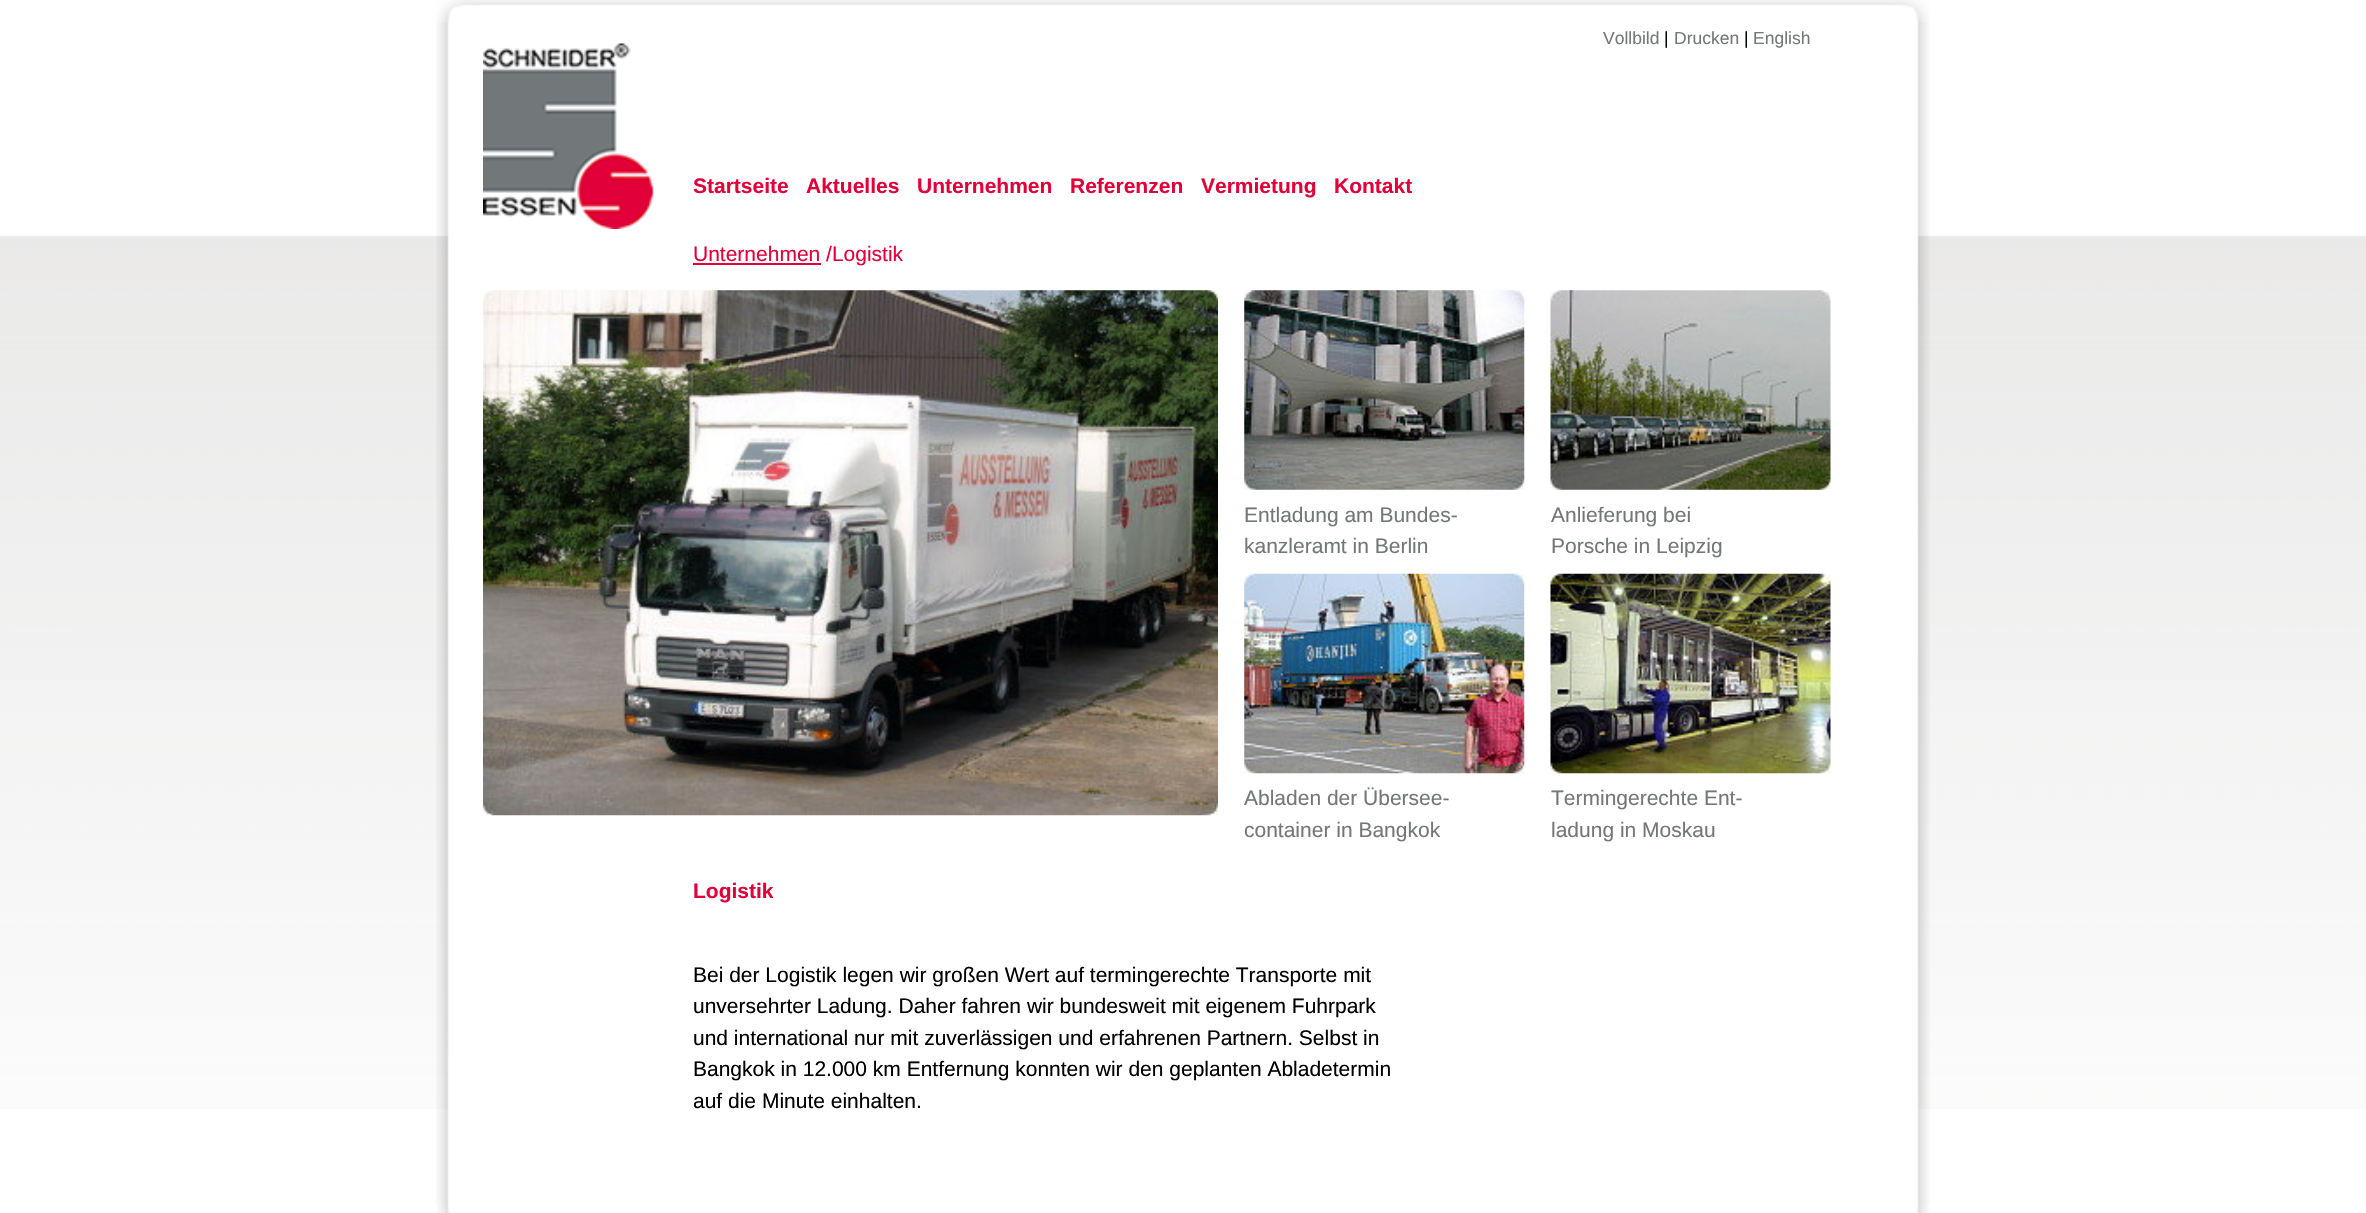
void draw(SkCanvas* canvas) {
	SkPaint paint;
	paint.setAntiAlias(true);
	canvas->clear(0xffffffff);
	canvas->drawImageRect(SkImages::DeferredFromEncodedData(SkData::MakeFromFileName("img1.png")), SkRect::MakeXYWH(0, 235, 2366, 874), SkSamplingOptions());
	canvas->drawImageRect(SkImages::DeferredFromEncodedData(SkData::MakeFromFileName("img2.png")), SkRect::MakeXYWH(436, 0, 1494, 23), SkSamplingOptions());
	canvas->drawImageRect(SkImages::DeferredFromEncodedData(SkData::MakeFromFileName("img10.png")), SkRect::MakeXYWH(437, 1203, 1492, 10), SkSamplingOptions());
	canvas->drawImageRect(SkImages::DeferredFromEncodedData(SkData::MakeFromFileName("img3.png")), SkRect::MakeXYWH(436, 22, 1494, 1182), SkSamplingOptions());
	SkFont f1(fontMgr->matchFamilyStyle("Liberation Sans", SkFontStyle::Normal()), 17.5);
	f1.setSubpixel(true);
	paint.setColor(0xff727778);
	canvas->drawString("Vollbild", 1603, 44, f1, paint);
	paint.setColor(0xff000000);
	canvas->drawString("|", 1664, 44, f1, paint);
	paint.setColor(0xff727778);
	canvas->drawString("Drucken", 1674, 44, f1, paint);
	paint.setColor(0xff000000);
	canvas->drawString("|", 1744, 44, f1, paint);
	paint.setColor(0xff727778);
	canvas->drawString("English", 1753, 44, f1, paint);
	canvas->drawImageRect(SkImages::DeferredFromEncodedData(SkData::MakeFromFileName("img4.png")), SkRect::MakeXYWH(483, 43, 171, 186), SkSamplingOptions());
	SkFont f2(fontMgr->matchFamilyStyle("Liberation Sans", SkFontStyle::Bold()), 21);
	f2.setSubpixel(true);
	paint.setColor(0xffe1003a);
	canvas->drawString("Startseite", 693, 193, f2, paint);
	canvas->drawString("Aktuelles", 806, 193, f2, paint);
	canvas->drawString("Unternehmen", 917, 193, f2, paint);
	canvas->drawString("Referenzen", 1070, 193, f2, paint);
	canvas->drawString("Vermietung", 1201, 193, f2, paint);
	canvas->drawString("Kontakt", 1334, 193, f2, paint);
	canvas->drawRect(SkRect::MakeXYWH(693, 263, 128, 2), paint);
	SkFont f3(fontMgr->matchFamilyStyle("Liberation Sans", SkFontStyle::Normal()), 21);
	f3.setSubpixel(true);
	canvas->drawString("Unternehmen /Logistik", 693, 261, f3, paint);
	canvas->drawImageRect(SkImages::DeferredFromEncodedData(SkData::MakeFromFileName("img5.png")), SkRect::MakeXYWH(483, 290, 735, 526), SkSamplingOptions());
	canvas->drawImageRect(SkImages::DeferredFromEncodedData(SkData::MakeFromFileName("img6.png")), SkRect::MakeXYWH(1244, 290, 281, 200), SkSamplingOptions());
	paint.setColor(0xff727778);
	canvas->drawString("Entladung am Bundes-", 1244, 522, f3, paint);
	canvas->drawString("kanzleramt in Berlin", 1244, 553, f3, paint);
	canvas->drawImageRect(SkImages::DeferredFromEncodedData(SkData::MakeFromFileName("img7.png")), SkRect::MakeXYWH(1550, 290, 281, 200), SkSamplingOptions());
	canvas->drawString("Anlieferung bei", 1551, 522, f3, paint);
	canvas->drawString("Porsche in Leipzig", 1551, 553, f3, paint);
	canvas->drawImageRect(SkImages::DeferredFromEncodedData(SkData::MakeFromFileName("img8.png")), SkRect::MakeXYWH(1244, 573, 281, 201), SkSamplingOptions());
	canvas->drawString("Abladen der Übersee-", 1244, 805, f3, paint);
	canvas->drawString("container in Bangkok", 1244, 837, f3, paint);
	canvas->drawImageRect(SkImages::DeferredFromEncodedData(SkData::MakeFromFileName("img9.png")), SkRect::MakeXYWH(1550, 573, 281, 201), SkSamplingOptions());
	canvas->drawString("Termingerechte Ent-", 1551, 805, f3, paint);
	canvas->drawString("ladung in Moskau", 1551, 837, f3, paint);
	paint.setColor(0xffe1003a);
	canvas->drawString("Logistik", 693, 898, f2, paint);
	paint.setColor(0xff000000);
	canvas->drawString("Bei der Logistik legen wir großen Wert auf termingerechte Transporte mit", 693, 982, f3, paint);
	canvas->drawString("unversehrter Ladung. Daher fahren wir bundesweit mit eigenem Fuhrpark", 693, 1013, f3, paint);
	canvas->drawString("und international nur mit zuverlässigen und erfahrenen Partnern. Selbst in", 693, 1045, f3, paint);
	canvas->drawString("Bangkok in 12.000 km Entfernung konnten wir den geplanten Abladetermin", 693, 1076, f3, paint);
	canvas->drawString("auf die Minute einhalten.", 693, 1108, f3, paint);
}
